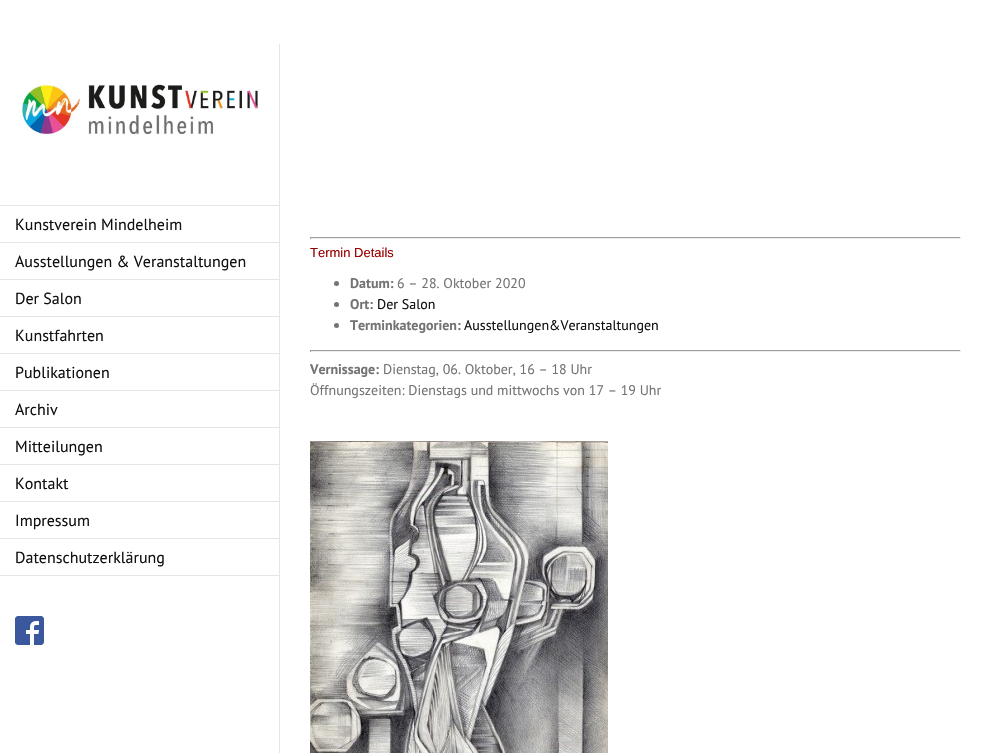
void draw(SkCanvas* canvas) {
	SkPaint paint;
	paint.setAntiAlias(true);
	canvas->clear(0xffffffff);
	canvas->drawImageRect(SkImages::DeferredFromEncodedData(SkData::MakeFromFileName("img1.png")), SkRect::MakeXYWH(20, 84, 240, 51), SkSamplingOptions());
	paint.setColor(0xffe5e5e5);
	canvas->drawRect(SkRect::MakeXYWH(279, 44, 1, 709), paint);
	canvas->drawRect(SkRect::MakeXYWH(0, 205, 280, 1), paint);
	canvas->drawRect(SkRect::MakeXYWH(0, 242, 280, 1), paint);
	SkFont f1(fontMgr->matchFamilyStyle("PT Sans", SkFontStyle::Normal()), 16);
	f1.setSubpixel(true);
	paint.setColor(0xff111111);
	canvas->drawString("Kunstverein Mindelheim", 15, 230, f1, paint);
	paint.setColor(0xffe5e5e5);
	canvas->drawRect(SkRect::MakeXYWH(0, 279, 280, 1), paint);
	paint.setColor(0xff111111);
	canvas->drawString("Ausstellungen & Veranstaltungen", 15, 267, f1, paint);
	paint.setColor(0xffe5e5e5);
	canvas->drawRect(SkRect::MakeXYWH(0, 316, 280, 1), paint);
	paint.setColor(0xff111111);
	canvas->drawString("Der Salon", 15, 304, f1, paint);
	paint.setColor(0xffe5e5e5);
	canvas->drawRect(SkRect::MakeXYWH(0, 353, 280, 1), paint);
	paint.setColor(0xff111111);
	canvas->drawString("Kunstfahrten", 15, 341, f1, paint);
	paint.setColor(0xffe5e5e5);
	canvas->drawRect(SkRect::MakeXYWH(0, 390, 280, 1), paint);
	paint.setColor(0xff111111);
	canvas->drawString("Publikationen", 15, 378, f1, paint);
	paint.setColor(0xffe5e5e5);
	canvas->drawRect(SkRect::MakeXYWH(0, 427, 280, 1), paint);
	paint.setColor(0xff111111);
	canvas->drawString("Archiv", 15, 415, f1, paint);
	paint.setColor(0xffe5e5e5);
	canvas->drawRect(SkRect::MakeXYWH(0, 464, 280, 1), paint);
	paint.setColor(0xff111111);
	canvas->drawString("Mitteilungen", 15, 452, f1, paint);
	paint.setColor(0xffe5e5e5);
	canvas->drawRect(SkRect::MakeXYWH(0, 501, 280, 1), paint);
	paint.setColor(0xff111111);
	canvas->drawString("Kontakt", 15, 489, f1, paint);
	paint.setColor(0xffe5e5e5);
	canvas->drawRect(SkRect::MakeXYWH(0, 538, 280, 1), paint);
	paint.setColor(0xff111111);
	canvas->drawString("Impressum", 15, 526, f1, paint);
	paint.setColor(0xffe5e5e5);
	canvas->drawRect(SkRect::MakeXYWH(0, 575, 280, 1), paint);
	paint.setColor(0xff111111);
	canvas->drawString("Datenschutzerklärung", 15, 563, f1, paint);
	canvas->drawImageRect(SkImages::DeferredFromEncodedData(SkData::MakeFromFileName("img2.png")), SkRect::MakeXYWH(15, 616, 29, 29), SkSamplingOptions());
	paint.setColor(0xff9f9f9f);
	canvas->drawRect(SkRect::MakeXYWH(310, 237, 651, 1), paint);
	paint.setColor(0xffeeeeee);
	canvas->drawRect(SkRect::MakeXYWH(960, 237, 1, 2), paint);
	canvas->drawRect(SkRect::MakeXYWH(310, 238, 651, 1), paint);
	paint.setColor(0xff9f9f9f);
	canvas->drawRect(SkRect::MakeXYWH(310, 237, 1, 2), paint);
	SkFont f2(fontMgr->matchFamilyStyle("Liberation Sans", SkFontStyle::Normal()), 13);
	f2.setSubpixel(true);
	paint.setColor(0xff990000);
	canvas->drawString("Termin Details", 310, 257, f2, paint);
	paint.setColor(0xff747474);
	canvas->drawCircle(336.5, 283.5, 2.5, paint);
	SkFont f3(fontMgr->matchFamilyStyle("PT Sans", SkFontStyle::Bold()), 14);
	f3.setSubpixel(true);
	canvas->drawString("Datum:", 350, 288, f3, paint);
	SkFont f4(fontMgr->matchFamilyStyle("PT Sans", SkFontStyle::Normal()), 14);
	f4.setSubpixel(true);
	canvas->drawString("6 – 28. Oktober 2020", 397, 288, f4, paint);
	canvas->drawCircle(336.5, 304.5, 2.5, paint);
	canvas->drawString("Ort:", 350, 309, f3, paint);
	paint.setColor(0xff111111);
	canvas->drawString("Der Salon", 377, 309, f4, paint);
	paint.setColor(0xff747474);
	canvas->drawCircle(336.5, 325.5, 2.5, paint);
	canvas->drawString("Terminkategorien:", 350, 330, f3, paint);
	paint.setColor(0xff111111);
	canvas->drawString("Ausstellungen&Veranstaltungen", 464, 330, f4, paint);
	paint.setColor(0xff9f9f9f);
	canvas->drawRect(SkRect::MakeXYWH(310, 350, 651, 1), paint);
	paint.setColor(0xffeeeeee);
	canvas->drawRect(SkRect::MakeXYWH(960, 350, 1, 2), paint);
	canvas->drawRect(SkRect::MakeXYWH(310, 351, 651, 1), paint);
	paint.setColor(0xff9f9f9f);
	canvas->drawRect(SkRect::MakeXYWH(310, 350, 1, 2), paint);
	paint.setColor(0xff747474);
	canvas->drawString("Vernissage:", 310, 374, f3, paint);
	canvas->drawString("Dienstag, 06. Oktober, 16 – 18 Uhr", 383, 374, f4, paint);
	canvas->drawString("Öffnungszeiten: Dienstags und mittwochs von 17 – 19 Uhr", 310, 395, f4, paint);
	canvas->drawImageRect(SkImages::DeferredFromEncodedData(SkData::MakeFromFileName("img3.png")), SkRect::MakeXYWH(310, 441, 298, 312), SkSamplingOptions());
}
